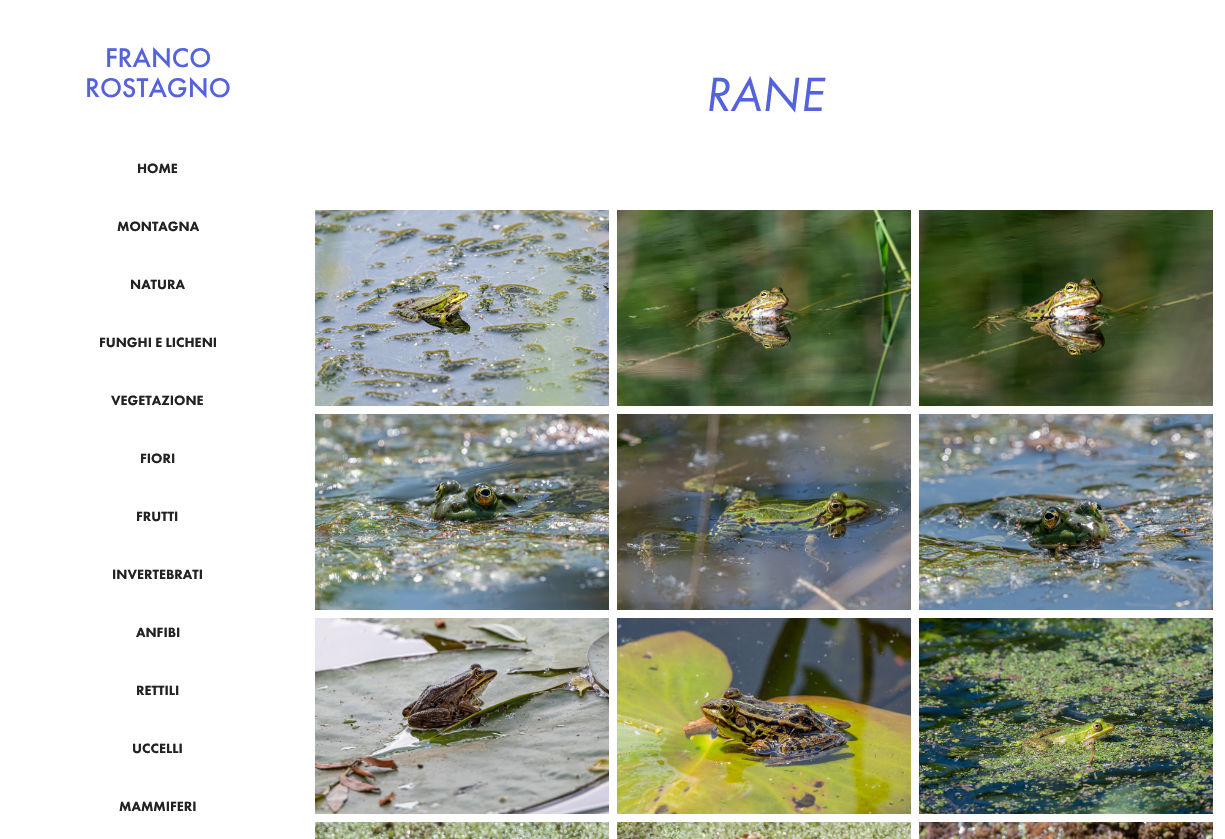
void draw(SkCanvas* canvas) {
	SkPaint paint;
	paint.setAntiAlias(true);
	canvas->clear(0xffffffff);
	SkFont f1(fontMgr->matchFamilyStyle("Futura PT", SkFontStyle(500, SkFontStyle::kNormal_Width, SkFontStyle::kUpright_Slant)), 28);
	f1.setSubpixel(true);
	paint.setColor(0xff5462dd);
	canvas->drawString("FRANCO", 105, 67, f1, paint);
	canvas->drawString("ROSTAGNO", 85, 97, f1, paint);
	SkFont f2(fontMgr->matchFamilyStyle("Futura PT", SkFontStyle(900, SkFontStyle::kNormal_Width, SkFontStyle::kUpright_Slant)), 14);
	f2.setSubpixel(true);
	paint.setColor(0xff222222);
	canvas->drawString("HOME", 137, 173, f2, paint);
	canvas->drawString("MONTAGNA", 117, 231, f2, paint);
	canvas->drawString("NATURA", 130, 289, f2, paint);
	canvas->drawString("FUNGHI E LICHENI", 99, 347, f2, paint);
	canvas->drawString("VEGETAZIONE", 111, 405, f2, paint);
	canvas->drawString("FIORI", 140, 463, f2, paint);
	canvas->drawString("FRUTTI", 136, 521, f2, paint);
	canvas->drawString("INVERTEBRATI", 112, 579, f2, paint);
	canvas->drawString("ANFIBI", 136, 637, f2, paint);
	canvas->drawString("RETTILI", 136, 695, f2, paint);
	canvas->drawString("UCCELLI", 132, 753, f2, paint);
	canvas->drawString("MAMMIFERI", 119, 811, f2, paint);
	SkFont f3(fontMgr->matchFamilyStyle("Futura PT", SkFontStyle::Italic()), 50);
	f3.setSubpixel(true);
	paint.setColor(0xff5462dd);
	canvas->drawString("RANE", 705, 111, f3, paint);
	canvas->drawImageRect(SkImages::DeferredFromEncodedData(SkData::MakeFromFileName("img1.png")), SkRect::MakeXYWH(315, 210, 294, 196), SkSamplingOptions());
	canvas->drawImageRect(SkImages::DeferredFromEncodedData(SkData::MakeFromFileName("img2.png")), SkRect::MakeXYWH(617, 210, 294, 196), SkSamplingOptions());
	canvas->drawImageRect(SkImages::DeferredFromEncodedData(SkData::MakeFromFileName("img3.png")), SkRect::MakeXYWH(919, 210, 294, 196), SkSamplingOptions());
	canvas->drawImageRect(SkImages::DeferredFromEncodedData(SkData::MakeFromFileName("img4.png")), SkRect::MakeXYWH(315, 414, 294, 196), SkSamplingOptions());
	canvas->drawImageRect(SkImages::DeferredFromEncodedData(SkData::MakeFromFileName("img5.png")), SkRect::MakeXYWH(617, 414, 294, 196), SkSamplingOptions());
	canvas->drawImageRect(SkImages::DeferredFromEncodedData(SkData::MakeFromFileName("img6.png")), SkRect::MakeXYWH(919, 414, 294, 196), SkSamplingOptions());
	canvas->drawImageRect(SkImages::DeferredFromEncodedData(SkData::MakeFromFileName("img7.png")), SkRect::MakeXYWH(315, 618, 294, 196), SkSamplingOptions());
	canvas->drawImageRect(SkImages::DeferredFromEncodedData(SkData::MakeFromFileName("img8.png")), SkRect::MakeXYWH(617, 618, 294, 196), SkSamplingOptions());
	canvas->drawImageRect(SkImages::DeferredFromEncodedData(SkData::MakeFromFileName("img9.png")), SkRect::MakeXYWH(919, 618, 294, 196), SkSamplingOptions());
	canvas->drawImageRect(SkImages::DeferredFromEncodedData(SkData::MakeFromFileName("img10.png")), SkRect::MakeXYWH(315, 822, 294, 17), SkSamplingOptions());
	canvas->drawImageRect(SkImages::DeferredFromEncodedData(SkData::MakeFromFileName("img11.png")), SkRect::MakeXYWH(617, 822, 294, 17), SkSamplingOptions());
	canvas->drawImageRect(SkImages::DeferredFromEncodedData(SkData::MakeFromFileName("img12.png")), SkRect::MakeXYWH(919, 822, 294, 17), SkSamplingOptions());
}
